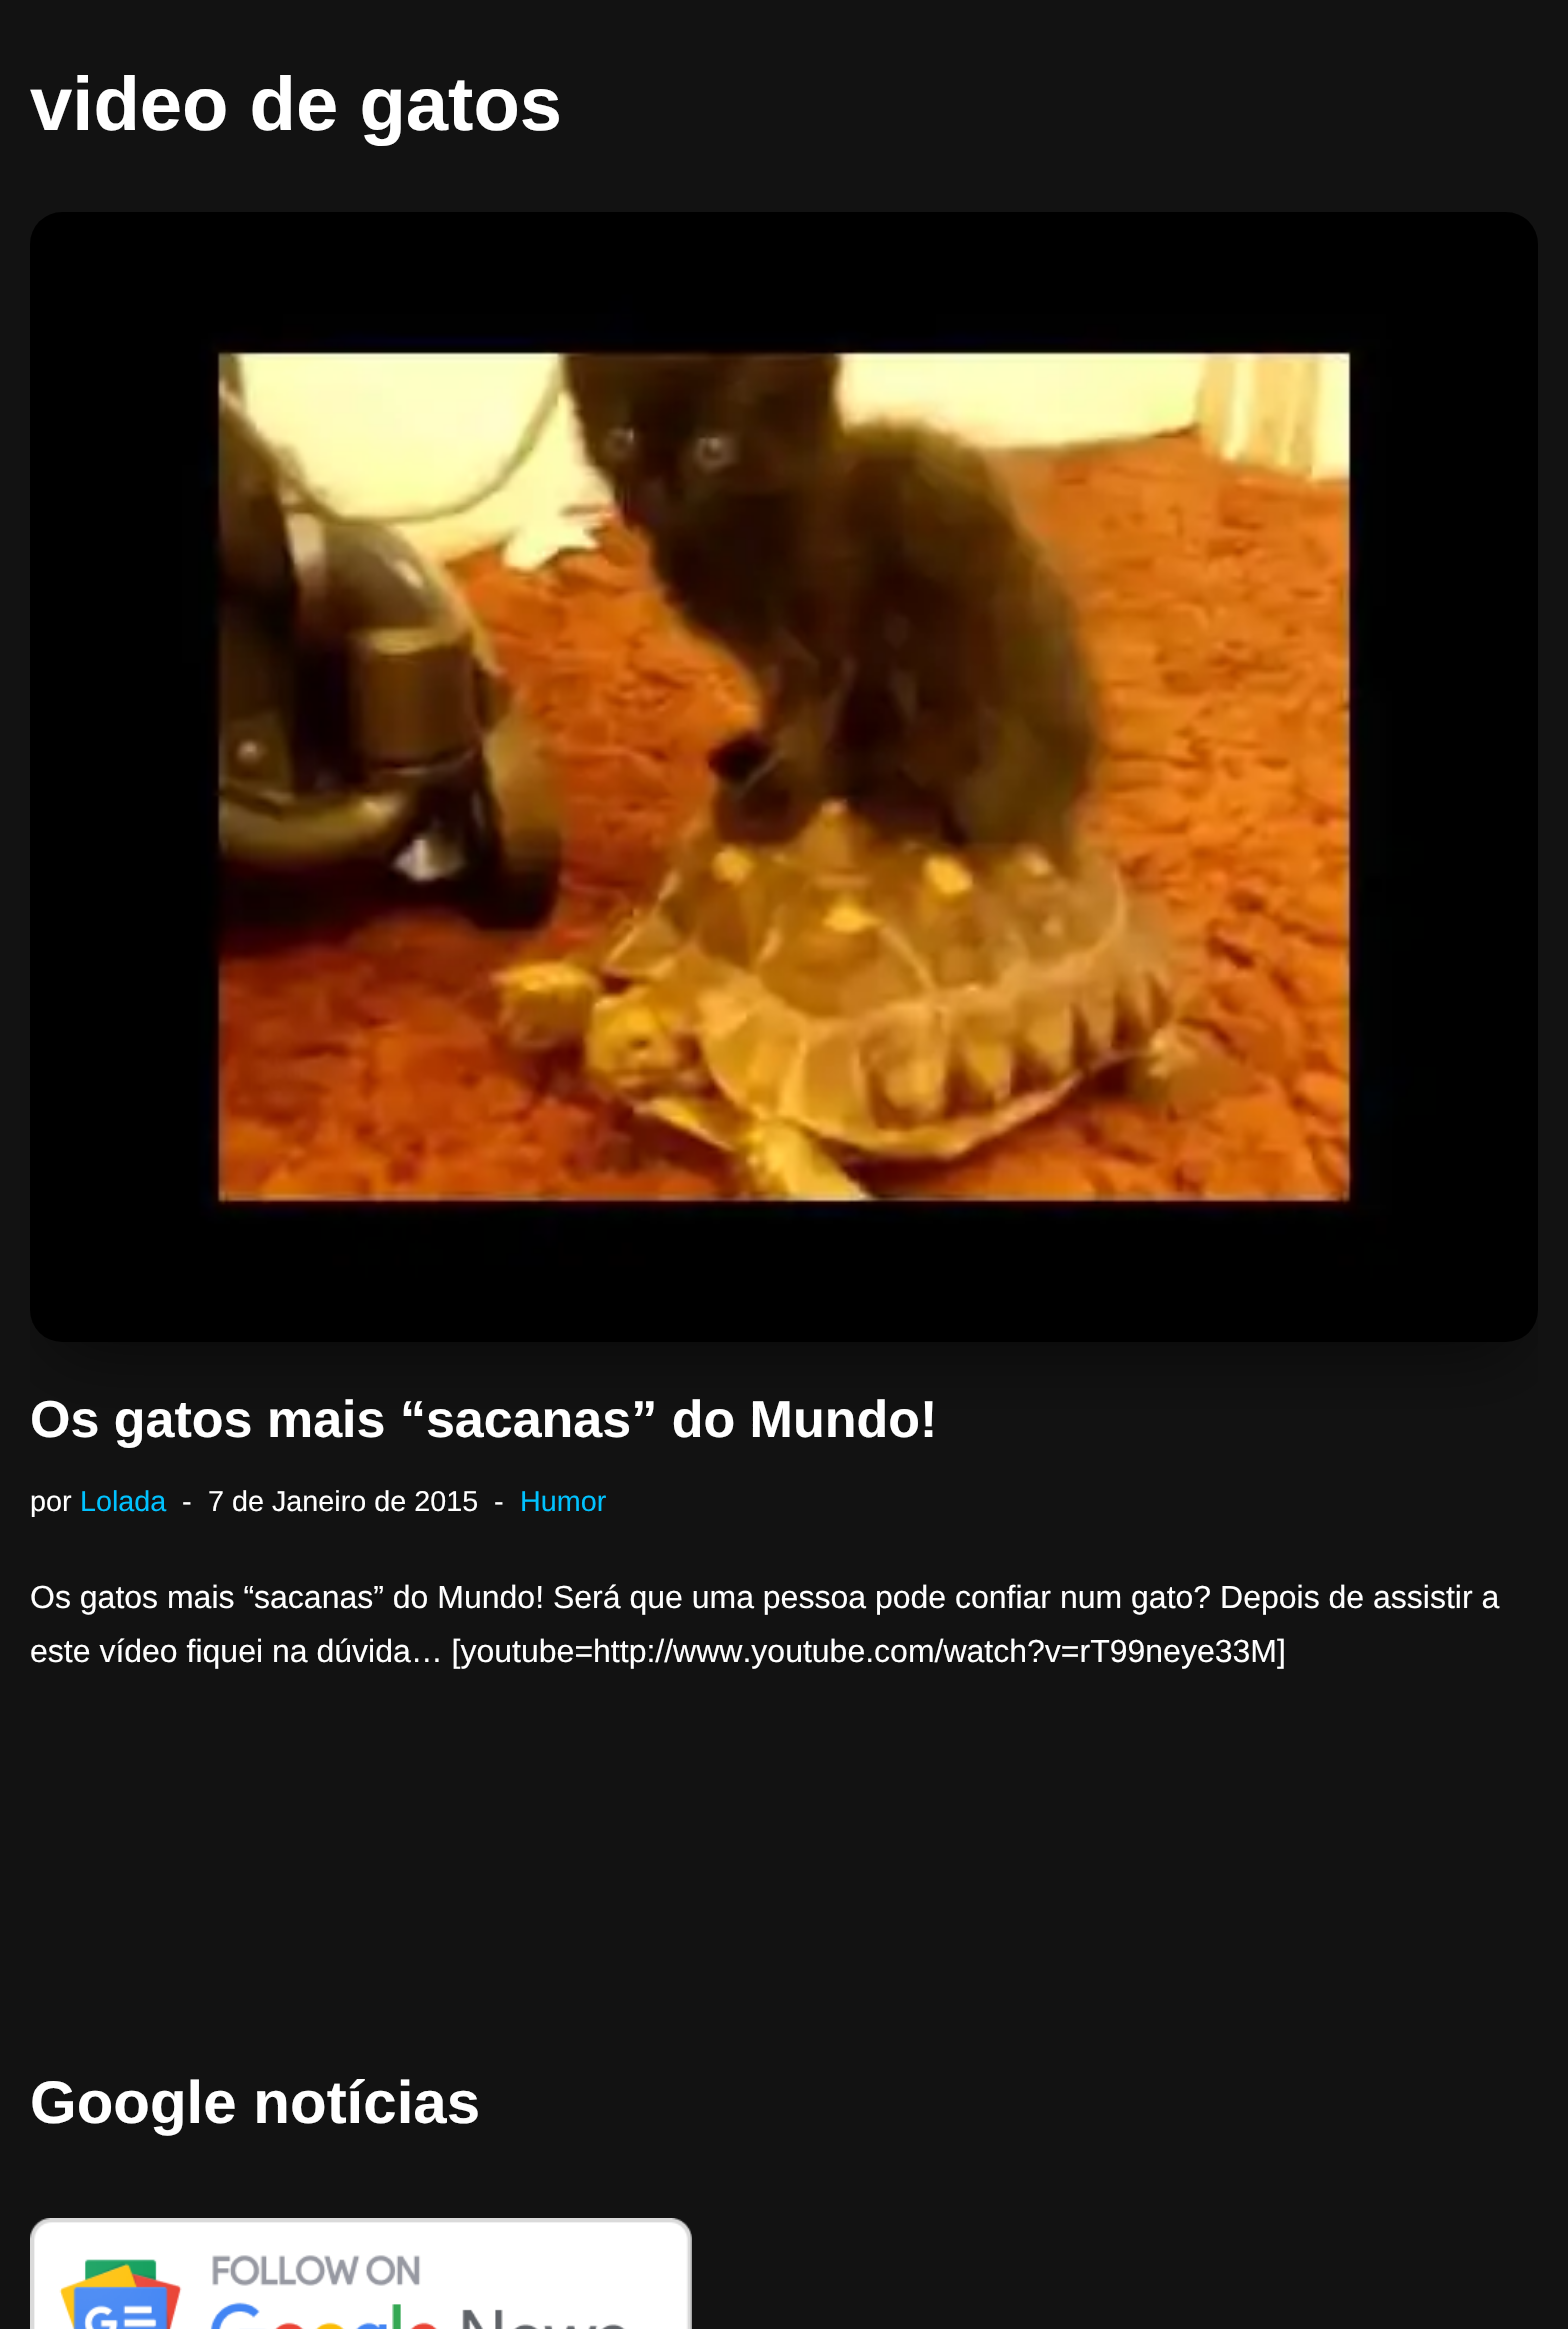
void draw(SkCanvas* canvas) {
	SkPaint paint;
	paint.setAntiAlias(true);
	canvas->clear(0xff121212);
	SkFont f1(fontMgr->matchFamilyStyle("Liberation Sans", SkFontStyle::Bold()), 76);
	f1.setSubpixel(true);
	paint.setColor(0xffffffff);
	canvas->drawString("video de gatos", 30, 130, f1, paint);
	canvas->save();
	canvas->clipRect(SkRect::MakeXYWH(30, 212, 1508, 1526));
	paint.setColor(0x8f000000);
	paint.setMaskFilter(SkMaskFilter::MakeBlur(kNormal_SkBlurStyle, 38));
	canvas->drawRoundRect(SkRect::MakeXYWH(54, 268, 1460, 1082), 8, 8, paint);
	paint.setMaskFilter(nullptr);
	canvas->restore();
	canvas->drawImageRect(SkImages::DeferredFromEncodedData(SkData::MakeFromFileName("img1.png")), SkRect::MakeXYWH(30, 212, 1508, 1130), SkSamplingOptions());
	SkFont f2(fontMgr->matchFamilyStyle("Liberation Sans", SkFontStyle::Bold()), 52);
	f2.setSubpixel(true);
	paint.setColor(0xffffffff);
	canvas->drawString("Os gatos mais “sacanas” do Mundo!", 30, 1437, f2, paint);
	SkFont f3(fontMgr->matchFamilyStyle("Liberation Sans", SkFontStyle::Normal()), 28.75);
	f3.setSubpixel(true);
	canvas->drawString("por", 30, 1511, f3, paint);
	paint.setColor(0xff00c2ff);
	canvas->drawString("Lolada", 80, 1511, f3, paint);
	paint.setColor(0xffffffff);
	canvas->drawString("-", 182, 1511, f3, paint);
	canvas->drawString("7 de Janeiro de 2015", 208, 1511, f3, paint);
	canvas->drawString("-", 494, 1511, f3, paint);
	paint.setColor(0xff00c2ff);
	canvas->drawString("Humor", 520, 1511, f3, paint);
	SkFont f4(fontMgr->matchFamilyStyle("Liberation Sans", SkFontStyle::Normal()), 32);
	f4.setSubpixel(true);
	paint.setColor(0xffffffff);
	canvas->drawString("Os gatos mais “sacanas” do Mundo! Será que uma pessoa pode confiar num gato? Depois de assistir a", 30, 1608, f4, paint);
	canvas->drawString("este vídeo fiquei na dúvida… [youtube=http://www.youtube.com/watch?v=rT99neye33M]", 30, 1662, f4, paint);
	SkFont f5(fontMgr->matchFamilyStyle("Liberation Sans", SkFontStyle::Bold()), 60);
	f5.setSubpixel(true);
	canvas->drawString("Google notícias", 30, 2123, f5, paint);
	canvas->drawImageRect(SkImages::DeferredFromEncodedData(SkData::MakeFromFileName("img2.png")), SkRect::MakeXYWH(30, 2218, 662, 111), SkSamplingOptions());
}
